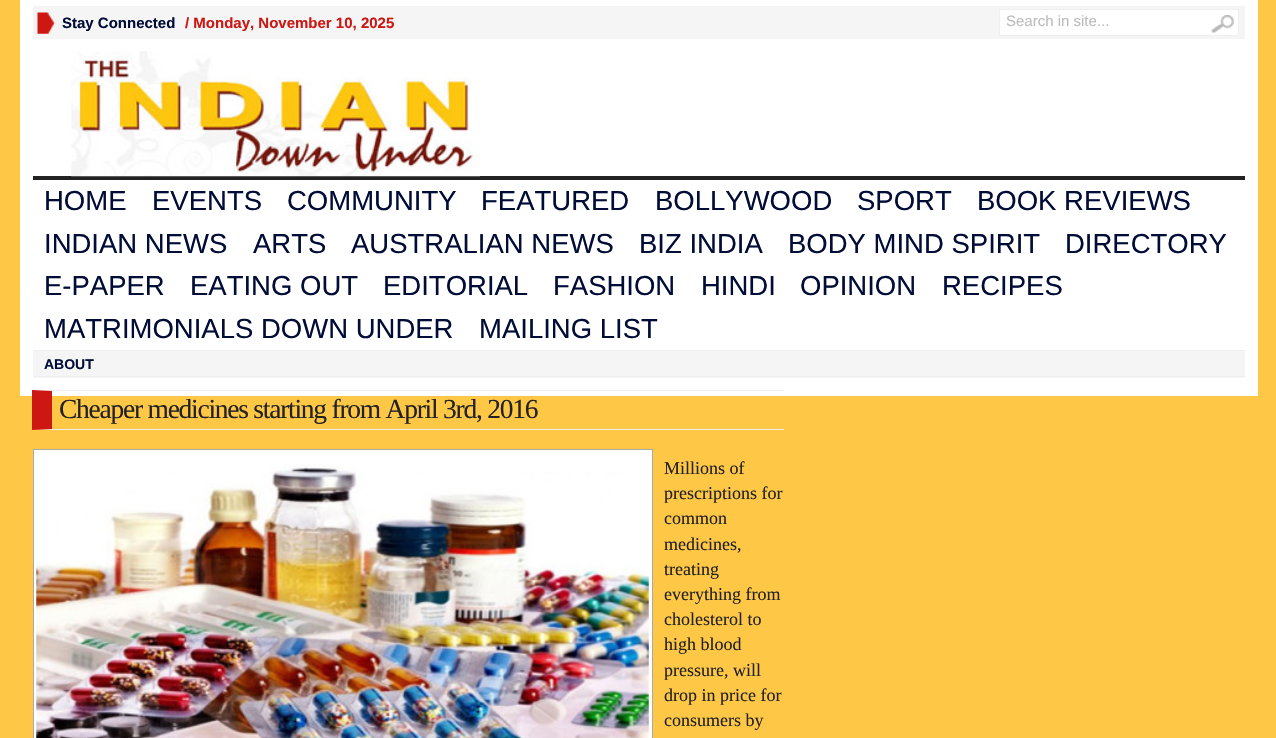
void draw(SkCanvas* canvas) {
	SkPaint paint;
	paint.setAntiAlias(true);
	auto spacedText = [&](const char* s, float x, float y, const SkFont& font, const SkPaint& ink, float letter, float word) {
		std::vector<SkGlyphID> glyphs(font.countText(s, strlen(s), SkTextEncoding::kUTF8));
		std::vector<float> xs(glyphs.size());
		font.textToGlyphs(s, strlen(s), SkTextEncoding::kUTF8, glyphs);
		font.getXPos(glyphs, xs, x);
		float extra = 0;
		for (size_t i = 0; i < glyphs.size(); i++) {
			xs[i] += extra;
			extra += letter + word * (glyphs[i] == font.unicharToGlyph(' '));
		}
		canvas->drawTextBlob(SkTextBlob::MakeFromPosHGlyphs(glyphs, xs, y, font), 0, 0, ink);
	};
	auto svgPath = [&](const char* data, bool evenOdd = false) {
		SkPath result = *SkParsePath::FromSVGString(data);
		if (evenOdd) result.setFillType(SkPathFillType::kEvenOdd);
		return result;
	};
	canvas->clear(0xffffc746);
	paint.setColor(0xffffffff);
	canvas->drawRect(SkRect::MakeXYWH(20, 0, 1238, 396), paint);
	paint.setColor(0xfff5f5f5);
	canvas->drawRect(SkRect::MakeXYWH(33, 6, 1212, 33), paint);
	canvas->drawImageRect(SkImages::DeferredFromEncodedData(SkData::MakeFromFileName("img1.png")), SkRect::MakeXYWH(37, 12, 19, 22), SkSamplingOptions());
	SkFont f1(fontMgr->matchFamilyStyle("Liberation Sans", SkFontStyle::Bold()), 15);
	f1.setSubpixel(true);
	paint.setColor(0xff010d37);
	canvas->drawString("Stay Connected", 62, 28, f1, paint);
	paint.setColor(0xffcd1713);
	canvas->drawString("/ Monday, November 10, 2025", 185, 28, f1, paint);
	paint.setColor(0xffffffff);
	canvas->drawRect(SkRect::MakeXYWH(999.5, 9.5, 239, 26), paint);
	paint.setStroke(true);
	paint.setStrokeWidth(1);
	paint.setColor(0xffefefef);
	canvas->drawRect(SkRect::MakeXYWH(999.5, 9.5, 239, 26), paint);
	SkFont f2(fontMgr->matchFamilyStyle("Liberation Sans", SkFontStyle::Normal()), 15);
	f2.setSubpixel(true);
	paint.setStroke(false);
	paint.setColor(0xffbcbcbc);
	canvas->drawString("Search in site...", 1006, 26, f2, paint);
	canvas->drawImageRect(SkImages::DeferredFromEncodedData(SkData::MakeFromFileName("img2.png")), SkRect::MakeXYWH(1211, 15, 23, 18), SkSamplingOptions());
	paint.setColor(0xff222222);
	canvas->drawRect(SkRect::MakeXYWH(33, 176, 1212, 4), paint);
	canvas->drawImageRect(SkImages::DeferredFromEncodedData(SkData::MakeFromFileName("img3.png")), SkRect::MakeXYWH(71, 51, 409, 126), SkSamplingOptions());
	paint.setColor(0xffefefef);
	canvas->drawRect(SkRect::MakeXYWH(33, 350, 1212, 1), paint);
	SkFont f3(fontMgr->matchFamilyStyle("Liberation Sans", SkFontStyle::Normal()), 27.5);
	f3.setSubpixel(true);
	paint.setColor(0xff010d37);
	canvas->drawString("HOME", 44, 210, f3, paint);
	canvas->drawString("EVENTS", 152, 210, f3, paint);
	canvas->drawString("COMMUNITY", 287, 210, f3, paint);
	canvas->drawString("FEATURED", 481, 210, f3, paint);
	canvas->drawString("BOLLYWOOD", 655, 210, f3, paint);
	canvas->drawString("SPORT", 857, 210, f3, paint);
	canvas->drawString("BOOK REVIEWS", 977, 210, f3, paint);
	canvas->drawString("INDIAN NEWS", 44, 253, f3, paint);
	canvas->drawString("ARTS", 253, 253, f3, paint);
	canvas->drawString("AUSTRALIAN NEWS", 351, 253, f3, paint);
	canvas->drawString("BIZ INDIA", 639, 253, f3, paint);
	canvas->drawString("BODY MIND SPIRIT", 788, 253, f3, paint);
	canvas->drawString("DIRECTORY", 1065, 253, f3, paint);
	canvas->drawString("E-PAPER", 44, 295, f3, paint);
	canvas->drawString("EATING OUT", 190, 295, f3, paint);
	canvas->drawString("EDITORIAL", 383, 295, f3, paint);
	canvas->drawString("FASHION", 553, 295, f3, paint);
	canvas->drawString("HINDI", 701, 295, f3, paint);
	canvas->drawString("OPINION", 800, 295, f3, paint);
	canvas->drawString("RECIPES", 942, 295, f3, paint);
	canvas->drawString("MATRIMONIALS DOWN UNDER", 44, 338, f3, paint);
	canvas->drawString("MAILING LIST", 479, 338, f3, paint);
	paint.setColor(0xfff5f5f5);
	canvas->drawRect(SkRect::MakeXYWH(33, 351, 1212, 27), paint);
	paint.setColor(0xffefefef);
	canvas->drawRect(SkRect::MakeXYWH(33, 376, 1212, 1), paint);
	SkFont f4(fontMgr->matchFamilyStyle("Liberation Sans", SkFontStyle::Bold()), 14);
	f4.setSubpixel(true);
	paint.setColor(0xff010d37);
	canvas->drawString("ABOUT", 44, 369, f4, paint);
	paint.setColor(0xffefefef);
	canvas->drawPath(svgPath("M32 390H784V391H52Z"), paint);
	canvas->drawPath(svgPath("M784 430H32L52 429H784Z"), paint);
	paint.setColor(0xffcd1713);
	canvas->drawPath(svgPath("M32 430V390L52 391V429Z"), paint);
	SkFont f5(fontMgr->matchFamilyStyle("Liberation Serif", SkFontStyle::Normal()), 27.5);
	f5.setSubpixel(true);
	paint.setColor(0xff222222);
	spacedText("Cheaper medicines starting from April 3rd, 2016", 59, 418, f5, paint, -1.25, 0);
	paint.setColor(0xffffffff);
	canvas->drawRect(SkRect::MakeXYWH(33.5, 449.5, 619, 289), paint);
	paint.setStroke(true);
	paint.setColor(0xffaaaaaa);
	canvas->drawRect(SkRect::MakeXYWH(33.5, 449.5, 619, 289), paint);
	canvas->drawImageRect(SkImages::DeferredFromEncodedData(SkData::MakeFromFileName("img4.png")), SkRect::MakeXYWH(36, 464, 613, 274), SkSamplingOptions());
	SkFont f6(fontMgr->matchFamilyStyle("Liberation Serif", SkFontStyle::Normal()), 18);
	f6.setSubpixel(true);
	paint.setStroke(false);
	paint.setColor(0xff222222);
	canvas->drawString("Millions of", 664, 474, f6, paint);
	canvas->drawString("prescriptions for", 664, 499, f6, paint);
	canvas->drawString("common", 664, 524, f6, paint);
	canvas->drawString("medicines,", 664, 550, f6, paint);
	canvas->drawString("treating", 664, 575, f6, paint);
	canvas->drawString("everything from", 664, 600, f6, paint);
	canvas->drawString("cholesterol to", 664, 625, f6, paint);
	canvas->drawString("high blood", 664, 650, f6, paint);
	canvas->drawString("pressure, will", 664, 676, f6, paint);
	canvas->drawString("drop in price for", 664, 701, f6, paint);
	canvas->drawString("consumers by", 664, 726, f6, paint);
}
